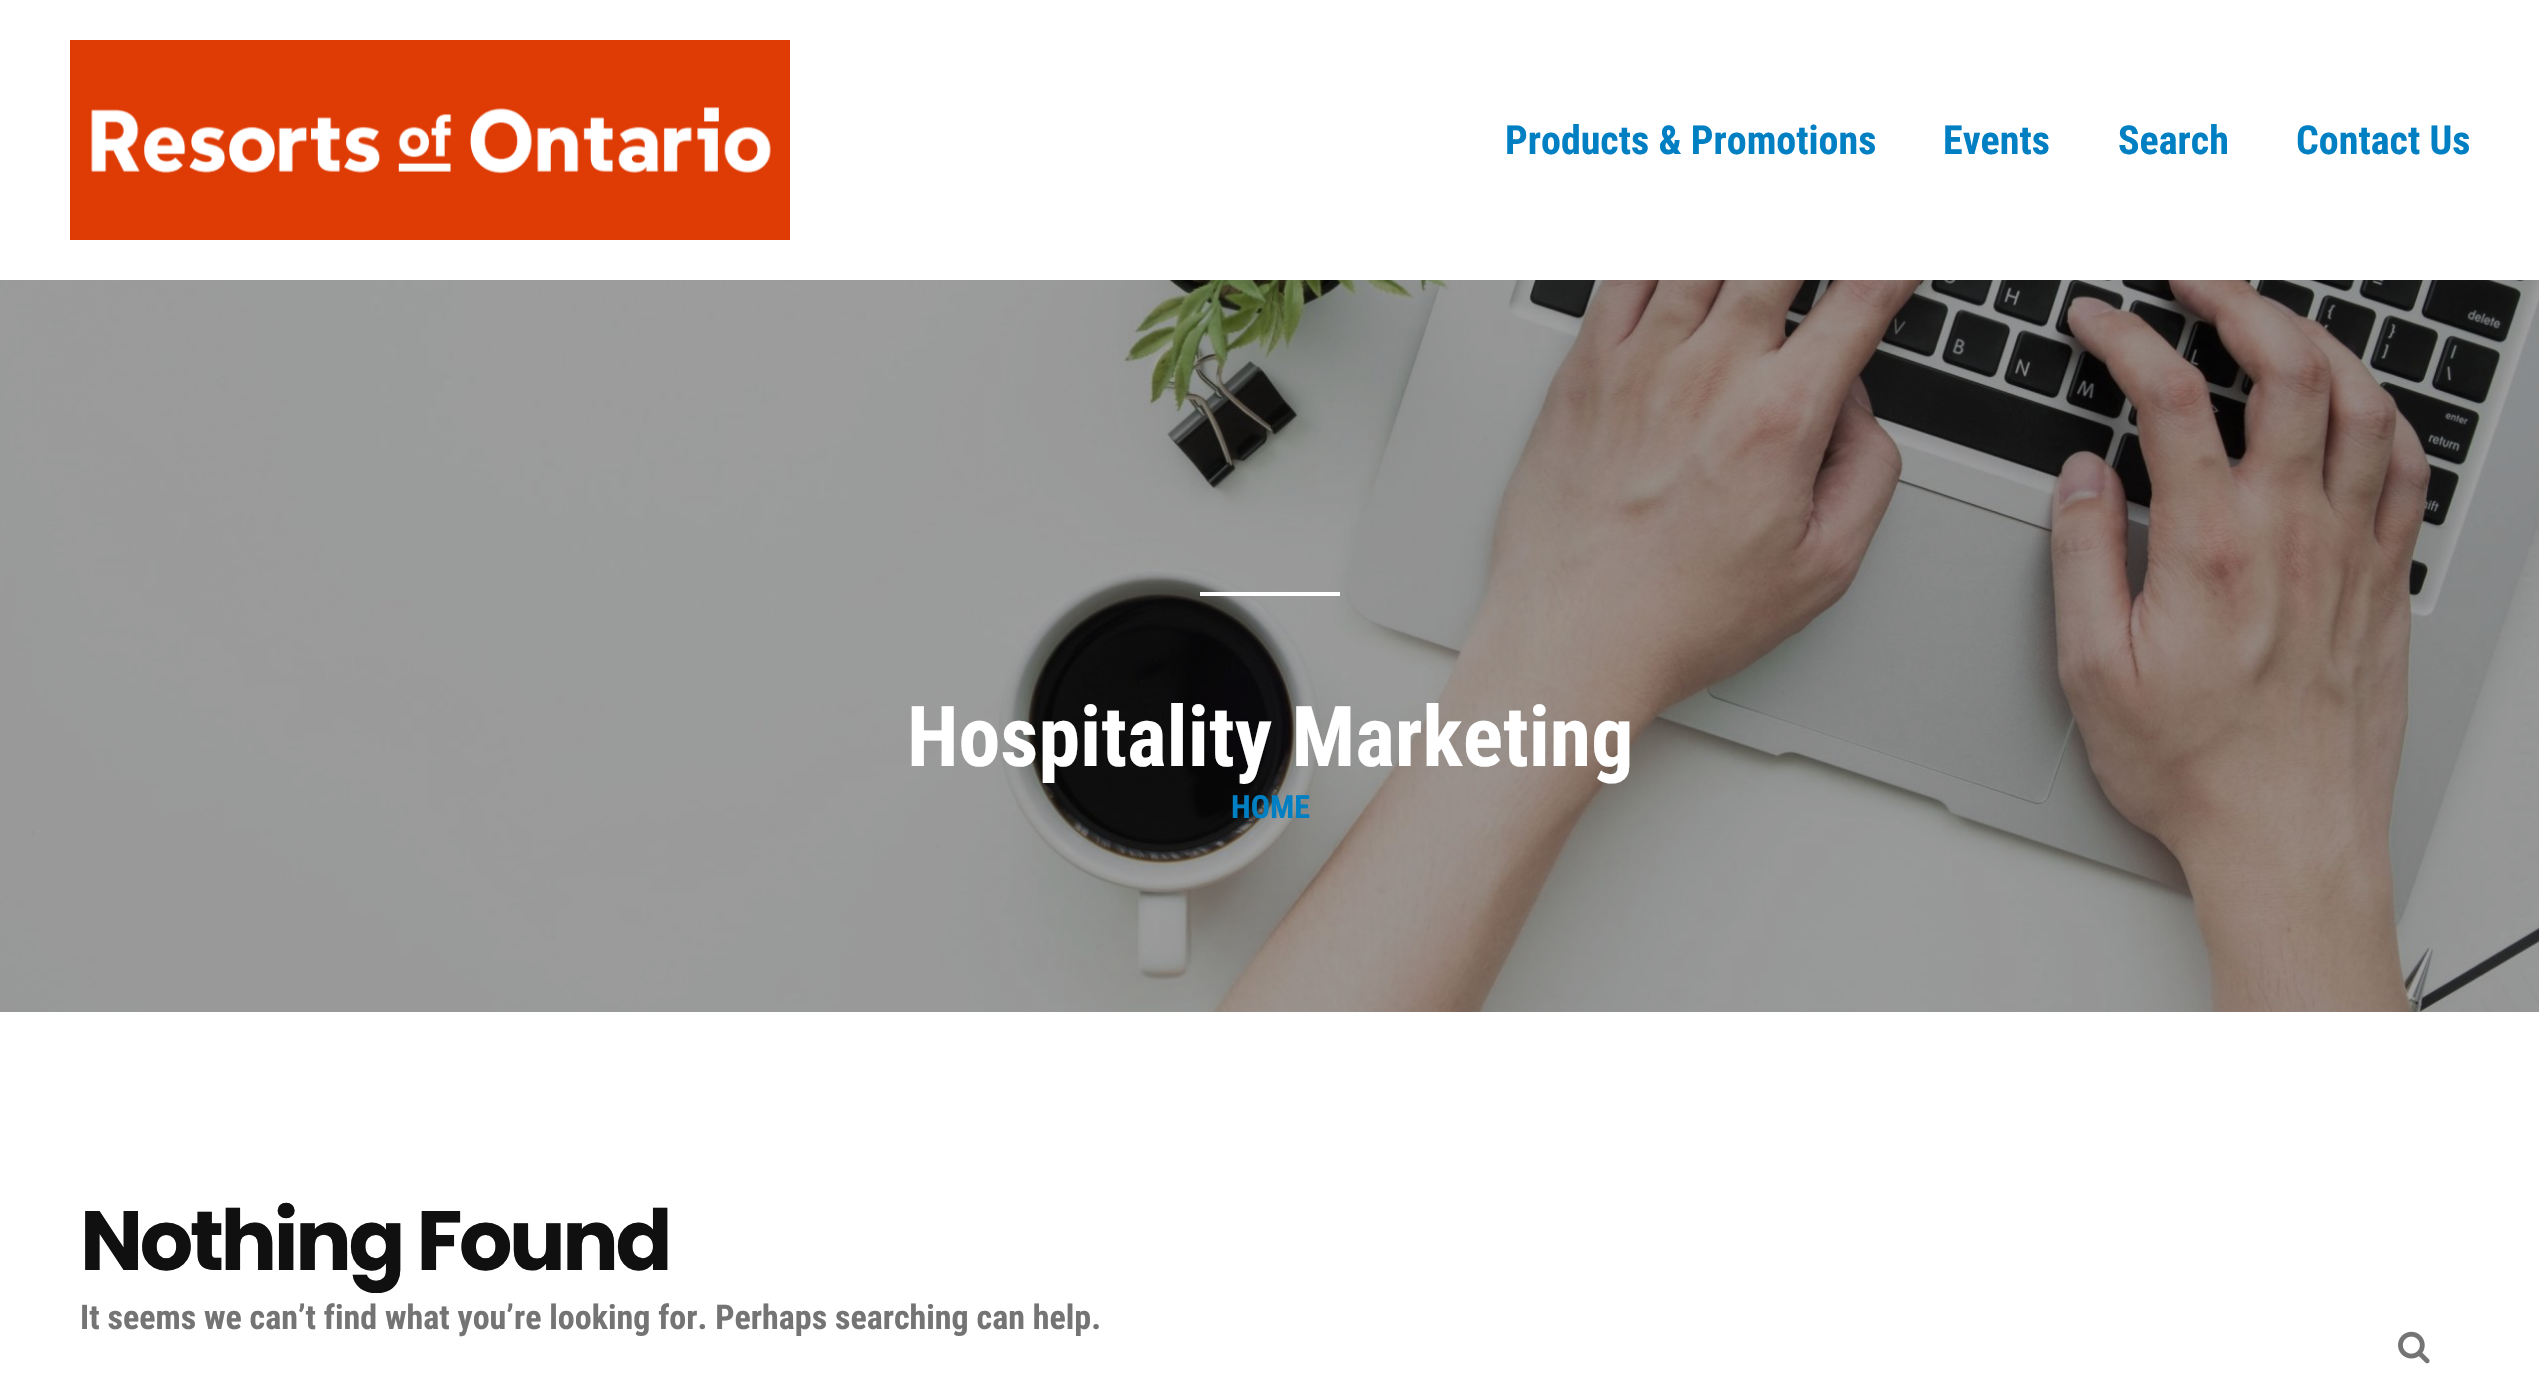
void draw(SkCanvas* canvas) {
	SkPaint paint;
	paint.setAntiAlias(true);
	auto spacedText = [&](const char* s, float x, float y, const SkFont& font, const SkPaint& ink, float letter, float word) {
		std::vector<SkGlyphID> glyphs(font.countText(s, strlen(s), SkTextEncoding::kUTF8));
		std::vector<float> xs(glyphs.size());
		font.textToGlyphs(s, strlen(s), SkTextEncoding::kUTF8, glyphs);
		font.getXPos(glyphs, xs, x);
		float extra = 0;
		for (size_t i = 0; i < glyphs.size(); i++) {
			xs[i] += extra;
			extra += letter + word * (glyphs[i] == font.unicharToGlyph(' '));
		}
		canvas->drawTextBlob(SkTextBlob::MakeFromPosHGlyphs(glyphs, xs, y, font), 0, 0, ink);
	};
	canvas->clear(0xffffffff);
	canvas->drawImageRect(SkImages::DeferredFromEncodedData(SkData::MakeFromFileName("img1.png")), SkRect::MakeXYWH(70, 40, 720, 200), SkSamplingOptions());
	SkFont f1(fontMgr->matchFamilyStyle("Roboto Condensed", SkFontStyle::Bold()), 40);
	f1.setSubpixel(true);
	paint.setColor(0xff007fc3);
	canvas->drawString("Products & Promotions", 1505, 154, f1, paint);
	canvas->drawString("Events", 1943, 154, f1, paint);
	canvas->drawString("Search", 2118, 154, f1, paint);
	canvas->drawString("Contact Us", 2296, 154, f1, paint);
	canvas->drawImageRect(SkImages::DeferredFromEncodedData(SkData::MakeFromFileName("img2.png")), SkRect::MakeXYWH(0, 280, 2539, 732), SkSamplingOptions());
	paint.setColor(0xffffffff);
	canvas->drawRect(SkRect::MakeXYWH(1200, 592, 140, 4), paint);
	SkFont f2(fontMgr->matchFamilyStyle("Roboto Condensed", SkFontStyle::Bold()), 84);
	f2.setSubpixel(true);
	canvas->drawString("Hospitality Marketing", 907, 766, f2, paint);
	SkFont f3(fontMgr->matchFamilyStyle("Roboto Condensed", SkFontStyle::Bold()), 32);
	f3.setSubpixel(true);
	paint.setColor(0xff007fc3);
	canvas->drawString("HOME", 1231, 818, f3, paint);
	SkFont f4(fontMgr->matchFamilyStyle("Poppins", SkFontStyle::Bold()), 84);
	f4.setSubpixel(true);
	paint.setColor(0xff101010);
	spacedText("Nothing Found", 80, 1270, f4, paint, -3.4, 0);
	SkFont f5(fontMgr->matchFamilyStyle("Roboto Condensed", SkFontStyle::Bold()), 34);
	f5.setSubpixel(true);
	paint.setColor(0xff747474);
	canvas->drawString("It seems we can’t find what you’re looking for. Perhaps searching can help.", 80, 1329, f5, paint);
	canvas->drawImageRect(SkImages::DeferredFromEncodedData(SkData::MakeFromFileName("img3.png")), SkRect::MakeXYWH(2398, 1331, 32, 33), SkSamplingOptions());
}
